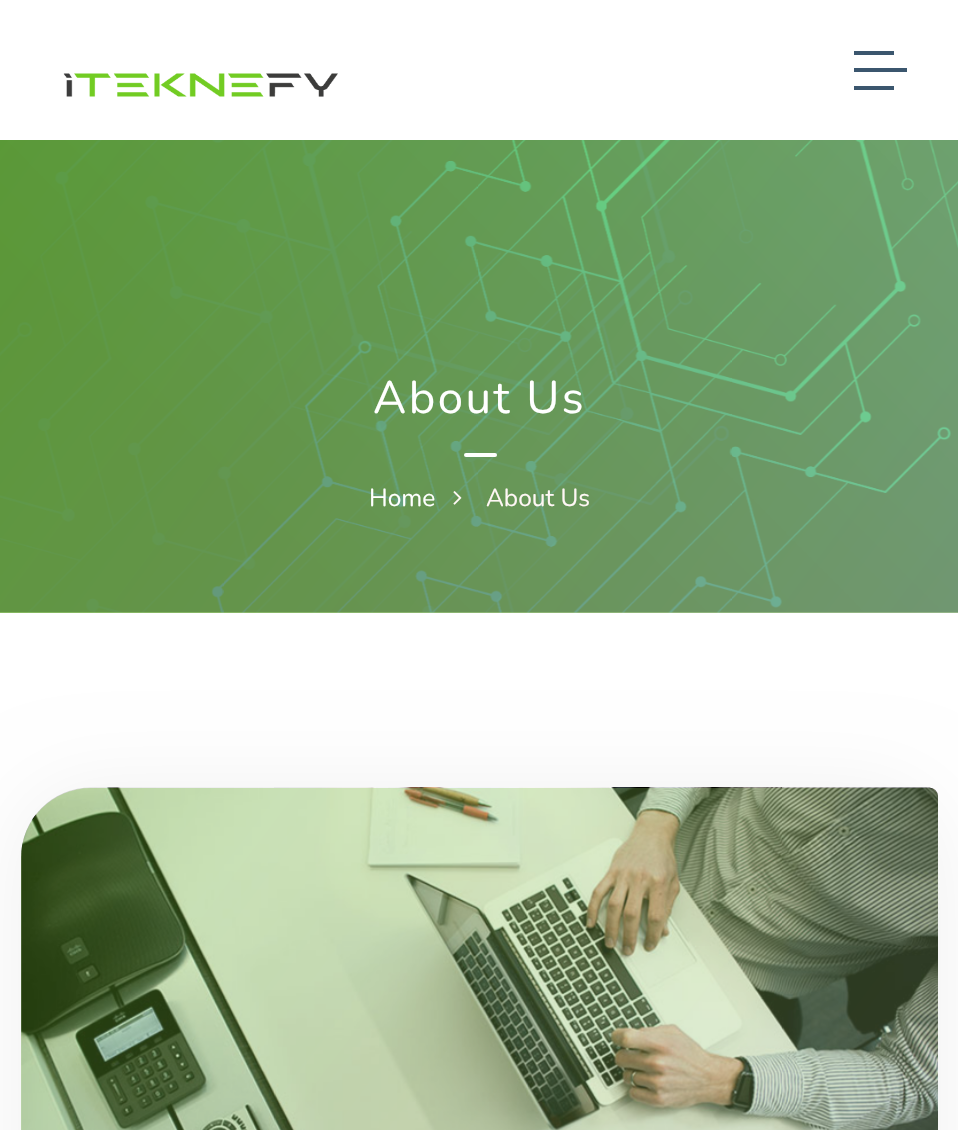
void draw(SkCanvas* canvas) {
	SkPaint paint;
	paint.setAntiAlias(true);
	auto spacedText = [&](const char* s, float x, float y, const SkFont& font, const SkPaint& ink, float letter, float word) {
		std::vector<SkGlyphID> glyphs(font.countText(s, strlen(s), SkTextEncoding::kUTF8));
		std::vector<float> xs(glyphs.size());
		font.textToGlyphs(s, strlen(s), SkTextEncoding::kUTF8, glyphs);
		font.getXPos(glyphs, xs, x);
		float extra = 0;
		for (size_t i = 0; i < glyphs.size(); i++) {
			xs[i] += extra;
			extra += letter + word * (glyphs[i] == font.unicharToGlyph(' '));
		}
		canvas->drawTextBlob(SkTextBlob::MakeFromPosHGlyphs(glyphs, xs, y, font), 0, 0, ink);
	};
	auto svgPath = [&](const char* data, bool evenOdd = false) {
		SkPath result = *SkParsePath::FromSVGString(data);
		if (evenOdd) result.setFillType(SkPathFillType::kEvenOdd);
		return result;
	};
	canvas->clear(0xffffffff);
	canvas->drawImageRect(SkImages::DeferredFromEncodedData(SkData::MakeFromFileName("img1.png")), SkRect::MakeXYWH(63, 73, 275, 24), SkSamplingOptions());
	paint.setColor(0xff3b566e);
	canvas->drawRect(SkRect::MakeXYWH(854, 68, 53, 4), paint);
	canvas->drawRect(SkRect::MakeXYWH(854, 51, 40, 4), paint);
	canvas->drawRect(SkRect::MakeXYWH(854, 86, 40, 4), paint);
	canvas->drawImageRect(SkImages::DeferredFromEncodedData(SkData::MakeFromFileName("img2.png")), SkRect::MakeXYWH(0, 140, 958, 473), SkSamplingOptions());
	{
		const SkColor colors[] = {0xb372cc23, 0xb39abd7c};
		const float stops[] = {0, 0.91};
		const SkPoint ends[] = {{-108, -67}, {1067, 819}};
		paint.setShader(SkGradientShader::MakeLinear(ends, colors, stops, 2, SkTileMode::kClamp));
		paint.setAlpha(255);
	}
	canvas->drawRect(SkRect::MakeXYWH(0, 140, 958, 473), paint);
	SkFont f1(fontMgr->matchFamilyStyle("Nunito", SkFontStyle::Normal()), 45.5);
	f1.setSubpixel(true);
	paint.setShader(nullptr);
	paint.setColor(0xffffffff);
	spacedText("About Us", 373, 413, f1, paint, 2.5, 0);
	canvas->drawRoundRect(SkRect::MakeXYWH(464, 453, 33, 4), 2, 2, paint);
	SkFont f2(fontMgr->matchFamilyStyle("Nunito", SkFontStyle::Normal()), 24.5);
	f2.setSubpixel(true);
	canvas->drawString("Home", 369, 506, f2, paint);
	canvas->drawImageRect(SkImages::DeferredFromEncodedData(SkData::MakeFromFileName("img3.png")), SkRect::MakeXYWH(453, 491, 9, 14), SkSamplingOptions());
	paint.setColor(0xfffff7f5);
	canvas->drawString("About Us", 486, 506, f2, paint);
	paint.setColor(0x0f000000);
	paint.setMaskFilter(SkMaskFilter::MakeBlur(kNormal_SkBlurStyle, 42));
	canvas->drawRoundRect(SkRect::MakeXYWH(21, 791, 917, 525), 70, 70, paint);
	paint.setMaskFilter(nullptr);
	canvas->drawImageRect(SkImages::DeferredFromEncodedData(SkData::MakeFromFileName("img4.png")), SkRect::MakeXYWH(21, 787, 917, 343), SkSamplingOptions());
	{
		const SkColor colors[] = {0x4d72cc23, 0x4d9abd7c};
		const float stops[] = {0, 0.91};
		const SkPoint ends[] = {{61, 735}, {898, 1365}};
		paint.setShader(SkGradientShader::MakeLinear(ends, colors, stops, 2, SkTileMode::kClamp));
		paint.setAlpha(255);
	}
	canvas->drawPath(svgPath("M91 788H929C934 788 938 792 938 797V1130C938 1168.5 906.5 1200 868 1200H91C52.5 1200 21 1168.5 21 1130V858C21 819.5 52.5 788 91 788Z"), paint);
}
